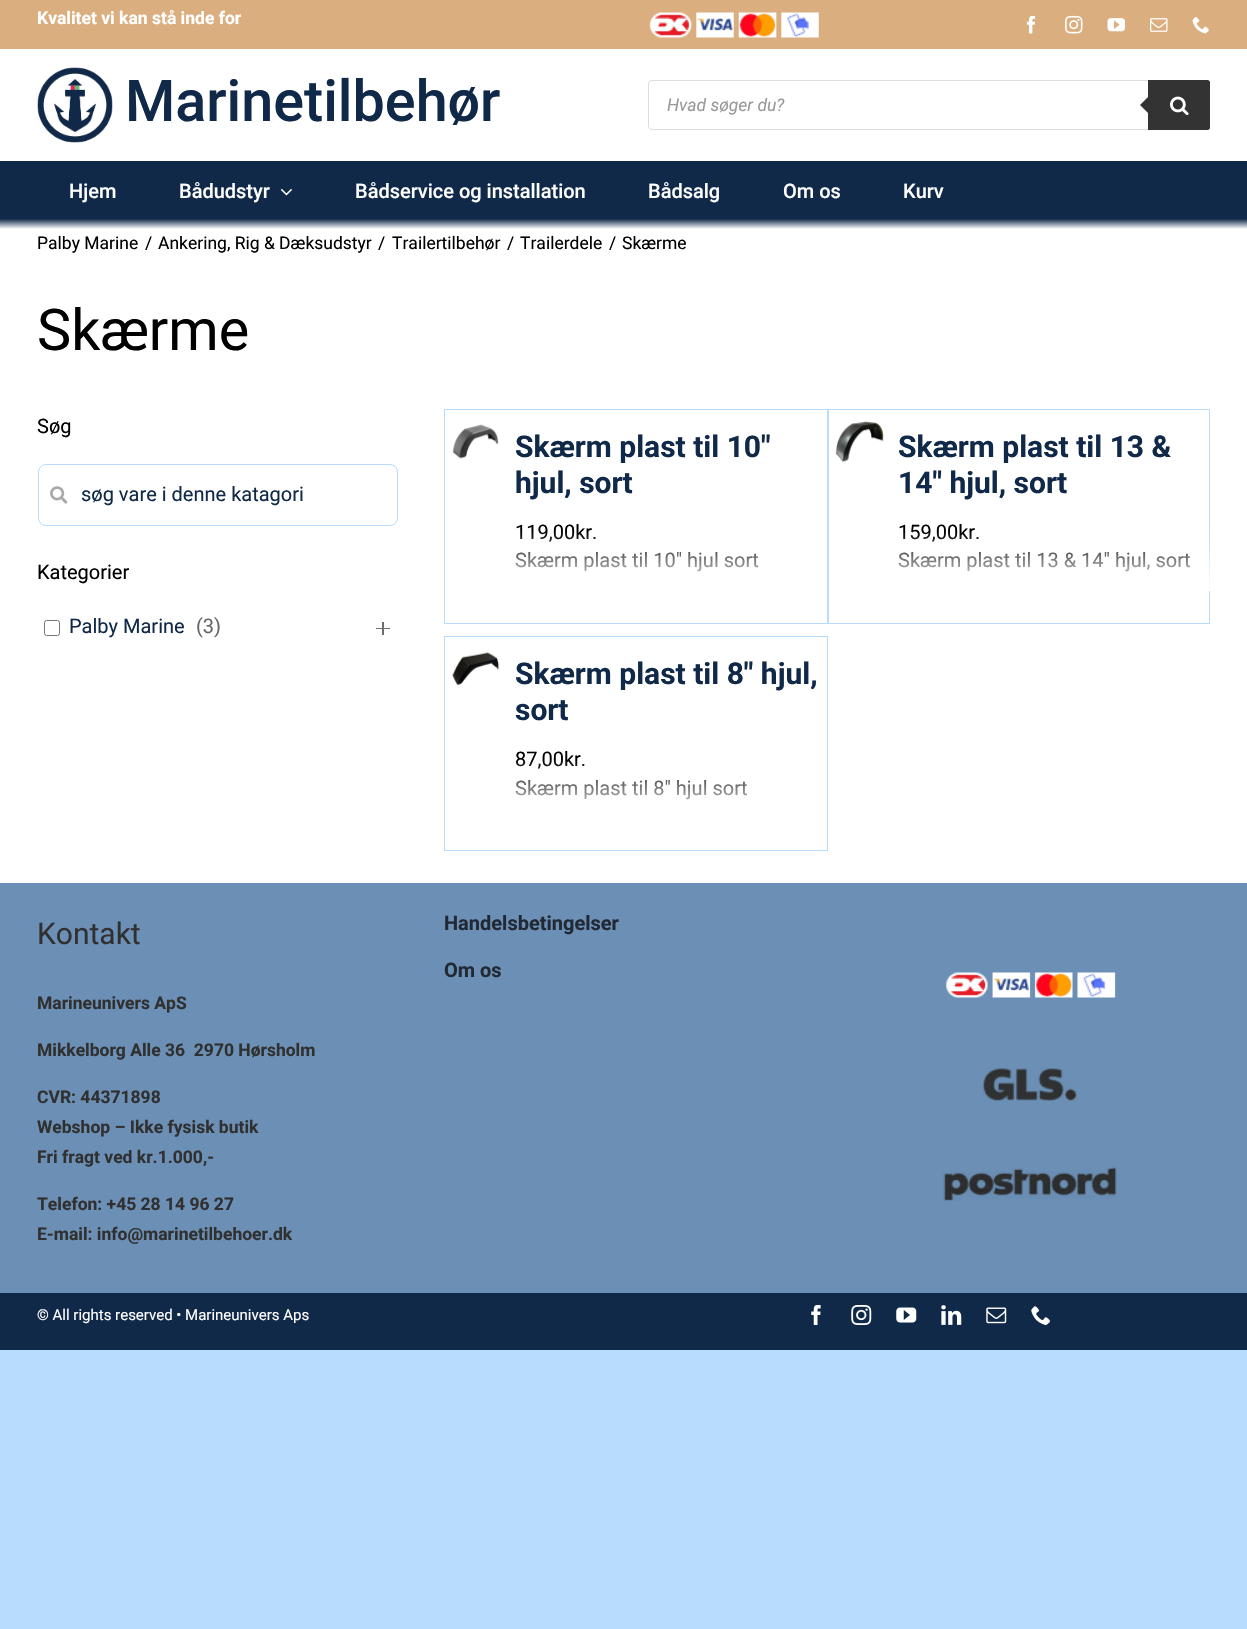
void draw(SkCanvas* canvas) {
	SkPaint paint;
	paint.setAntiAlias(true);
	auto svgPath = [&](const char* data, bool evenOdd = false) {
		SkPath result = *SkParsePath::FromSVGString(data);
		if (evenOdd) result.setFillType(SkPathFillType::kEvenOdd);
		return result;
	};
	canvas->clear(0xffb7dcfd);
	paint.setColor(0xffffffff);
	canvas->drawRect(SkRect::MakeXYWH(0, 49, 1247, 834), paint);
	paint.setColor(0xffdbae7f);
	canvas->drawRect(SkRect::MakeXYWH(0, 0, 1247, 49), paint);
	SkFont f1(fontMgr->matchFamilyStyle("Roboto", SkFontStyle::Bold()), 17.5);
	f1.setSubpixel(true);
	paint.setColor(0xffffffff);
	canvas->drawString("Kvalitet vi kan stå inde for", 37, 24, f1, paint);
	canvas->drawImageRect(SkImages::DeferredFromEncodedData(SkData::MakeFromFileName("img1.png")), SkRect::MakeXYWH(649, 12, 170, 26), SkSamplingOptions());
	canvas->drawImageRect(SkImages::DeferredFromEncodedData(SkData::MakeFromFileName("img2.png")), SkRect::MakeXYWH(1026, 15, 10, 19), SkSamplingOptions());
	canvas->drawImageRect(SkImages::DeferredFromEncodedData(SkData::MakeFromFileName("img3.png")), SkRect::MakeXYWH(1065, 15, 18, 19), SkSamplingOptions());
	canvas->drawImageRect(SkImages::DeferredFromEncodedData(SkData::MakeFromFileName("img4.png")), SkRect::MakeXYWH(1107, 18, 18, 14), SkSamplingOptions());
	canvas->drawImageRect(SkImages::DeferredFromEncodedData(SkData::MakeFromFileName("img5.png")), SkRect::MakeXYWH(1150, 18, 18, 14), SkSamplingOptions());
	canvas->drawImageRect(SkImages::DeferredFromEncodedData(SkData::MakeFromFileName("img6.png")), SkRect::MakeXYWH(1192, 17, 17, 17), SkSamplingOptions());
	canvas->drawImageRect(SkImages::DeferredFromEncodedData(SkData::MakeFromFileName("img7.png")), SkRect::MakeXYWH(37, 67, 76, 76), SkSamplingOptions());
	SkFont f2(fontMgr->matchFamilyStyle("Roboto", SkFontStyle(500, SkFontStyle::kNormal_Width, SkFontStyle::kUpright_Slant)), 57.5);
	f2.setSubpixel(true);
	paint.setColor(0xff112949);
	canvas->drawString("Marinetilbehør", 125, 121, f2, paint);
	paint.setStroke(true);
	paint.setStrokeWidth(1);
	paint.setColor(0xffdddddd);
	canvas->drawRoundRect(SkRect::MakeXYWH(648.5, 80.5, 561, 49), 3.5, 3.5, paint);
	SkFont f3(fontMgr->matchFamilyStyle("Roboto", SkFontStyle::Italic()), 17.5);
	f3.setSubpixel(true);
	paint.setStroke(false);
	paint.setColor(0xff999999);
	canvas->drawString("Hvad søger du?", 667, 111, f3, paint);
	paint.setColor(0xff333333);
	canvas->drawPath(svgPath("M1148 80H1207.5C1209 80 1210 81 1210 82.5V127.5C1210 129 1209 130 1207.5 130H1148Z"), paint);
	canvas->drawPath(svgPath("M1150 95V115L1140 105Z"), paint);
	canvas->drawImageRect(SkImages::DeferredFromEncodedData(SkData::MakeFromFileName("img8.png")), SkRect::MakeXYWH(1170, 96, 19, 19), SkSamplingOptions());
	{
		const SkColor colors[] = {0xff112949, 0xffffffff};
		const float stops[] = {0.85, 1};
		const SkPoint ends[] = {{624, 161}, {624, 229}};
		paint.setShader(SkGradientShader::MakeLinear(ends, colors, stops, 2, SkTileMode::kClamp));
		paint.setAlpha(255);
	}
	canvas->drawRect(SkRect::MakeXYWH(0, 161, 1247, 68), paint);
	SkFont f4(fontMgr->matchFamilyStyle("Roboto", SkFontStyle(500, SkFontStyle::kNormal_Width, SkFontStyle::kUpright_Slant)), 20);
	f4.setSubpixel(true);
	paint.setShader(nullptr);
	paint.setColor(0xffffffff);
	canvas->drawString("Hjem", 69, 198, f4, paint);
	canvas->drawString("Bådudstyr", 179, 198, f4, paint);
	canvas->drawImageRect(SkImages::DeferredFromEncodedData(SkData::MakeFromFileName("img9.png")), SkRect::MakeXYWH(280, 188, 12, 8), SkSamplingOptions());
	canvas->drawString("Bådservice og installation", 355, 198, f4, paint);
	canvas->drawString("Bådsalg", 648, 198, f4, paint);
	canvas->drawString("Om os", 783, 198, f4, paint);
	canvas->drawString("Kurv", 903, 198, f4, paint);
	SkFont f5(fontMgr->matchFamilyStyle("Roboto", SkFontStyle::Normal()), 17.5);
	f5.setSubpixel(true);
	paint.setColor(0xff000000);
	canvas->drawString("Palby Marine", 37, 249, f5, paint);
	canvas->drawString("/", 145, 249, f5, paint);
	canvas->drawString("Ankering, Rig & Dæksudstyr", 158, 249, f5, paint);
	canvas->drawString("/", 378, 249, f5, paint);
	canvas->drawString("Trailertilbehør", 392, 249, f5, paint);
	canvas->drawString("/", 507, 249, f5, paint);
	canvas->drawString("Trailerdele", 520, 249, f5, paint);
	canvas->drawString("/", 609, 249, f5, paint);
	canvas->drawString("Skærme", 622, 249, f5, paint);
	SkFont f6(fontMgr->matchFamilyStyle("Roboto", SkFontStyle::Normal()), 57.5);
	f6.setSubpixel(true);
	canvas->drawString("Skærme", 37, 350, f6, paint);
	SkFont f7(fontMgr->matchFamilyStyle("Roboto", SkFontStyle::Normal()), 20);
	f7.setSubpixel(true);
	canvas->drawString("Søg", 37, 433, f7, paint);
	paint.setStroke(true);
	paint.setColor(0xffb7dcfd);
	canvas->drawRoundRect(SkRect::MakeXYWH(38.5, 464.5, 359, 61), 7.5, 7.5, paint);
	canvas->drawImageRect(SkImages::DeferredFromEncodedData(SkData::MakeFromFileName("img10.png")), SkRect::MakeXYWH(50, 486, 18, 18), SkSamplingOptions());
	paint.setStroke(false);
	paint.setColor(0xff112949);
	canvas->drawString("søg vare i denne katagori", 81, 501, f7, paint);
	paint.setColor(0xff000000);
	canvas->drawString("Kategorier", 37, 579, f7, paint);
	paint.setStroke(true);
	paint.setColor(0xff767676);
	canvas->drawRoundRect(SkRect::MakeXYWH(44.5, 620.5, 15, 15), 2, 2, paint);
	paint.setStroke(false);
	paint.setColor(0xff112949);
	canvas->drawString("Palby Marine", 69, 633, f7, paint);
	paint.setColor(0xff666666);
	canvas->drawString("(3)", 196, 633, f7, paint);
	paint.setColor(0xff6d6d6d);
	canvas->drawRect(SkRect::MakeXYWH(382, 622, 2, 13), paint);
	canvas->drawRect(SkRect::MakeXYWH(376, 628, 14, 1), paint);
	paint.setStroke(true);
	paint.setColor(0xffb7dcfd);
	canvas->drawRect(SkRect::MakeXYWH(444.5, 409.5, 383, 214), paint);
	canvas->drawImageRect(SkImages::DeferredFromEncodedData(SkData::MakeFromFileName("img11.png")), SkRect::MakeXYWH(452, 424, 47, 35), SkSamplingOptions());
	SkFont f8(fontMgr->matchFamilyStyle("Roboto", SkFontStyle::Bold()), 30);
	f8.setSubpixel(true);
	paint.setStroke(false);
	paint.setColor(0xff112949);
	canvas->drawString("Skærm plast til 10″", 515, 457, f8, paint);
	canvas->drawString("hjul, sort", 515, 493, f8, paint);
	paint.setColor(0xff000000);
	canvas->drawString("119,00kr.", 515, 539, f7, paint);
	canvas->drawString("Skærm plast til 10\" hjul sort", 515, 567, f7, paint);
	{
		const SkColor colors[] = {0x00ffffff, 0xffffffff};
		const float stops[] = {0, 1};
		const SkPoint ends[] = {{667, 531}, {667, 591}};
		paint.setShader(SkGradientShader::MakeLinear(ends, colors, stops, 2, SkTileMode::kClamp));
		paint.setAlpha(255);
	}
	canvas->drawRect(SkRect::MakeXYWH(516, 532, 243, 40), paint);
	paint.setStroke(true);
	paint.setShader(nullptr);
	paint.setColor(0xffb7dcfd);
	canvas->drawRect(SkRect::MakeXYWH(828.5, 409.5, 381, 214), paint);
	canvas->drawImageRect(SkImages::DeferredFromEncodedData(SkData::MakeFromFileName("img12.png")), SkRect::MakeXYWH(835, 421, 49, 41), SkSamplingOptions());
	paint.setStroke(false);
	paint.setColor(0xff112949);
	canvas->drawString("Skærm plast til 13 &", 898, 457, f8, paint);
	canvas->drawString("14″ hjul, sort", 898, 493, f8, paint);
	paint.setColor(0xff000000);
	canvas->drawString("159,00kr.", 898, 539, f7, paint);
	canvas->drawString("Skærm plast til 13 & 14\" hjul, sort", 898, 567, f7, paint);
	{
		const SkColor colors[] = {0x00ffffff, 0xffffffff};
		const float stops[] = {0, 1};
		const SkPoint ends[] = {{1051, 531}, {1051, 591}};
		paint.setShader(SkGradientShader::MakeLinear(ends, colors, stops, 2, SkTileMode::kClamp));
		paint.setAlpha(255);
	}
	canvas->drawRect(SkRect::MakeXYWH(899, 532, 311, 59), paint);
	paint.setStroke(true);
	paint.setShader(nullptr);
	paint.setColor(0xffb7dcfd);
	canvas->drawRect(SkRect::MakeXYWH(444.5, 636.5, 383, 214), paint);
	canvas->drawImageRect(SkImages::DeferredFromEncodedData(SkData::MakeFromFileName("img13.png")), SkRect::MakeXYWH(452, 652, 48, 33), SkSamplingOptions());
	paint.setStroke(false);
	paint.setColor(0xff112949);
	canvas->drawString("Skærm plast til 8″ hjul,", 515, 684, f8, paint);
	canvas->drawString("sort", 515, 720, f8, paint);
	paint.setColor(0xff000000);
	canvas->drawString("87,00kr.", 515, 766, f7, paint);
	canvas->drawString("Skærm plast til 8\" hjul sort", 515, 795, f7, paint);
	{
		const SkColor colors[] = {0x00ffffff, 0xffffffff};
		const float stops[] = {0, 1};
		const SkPoint ends[] = {{667, 759}, {667, 819}};
		paint.setShader(SkGradientShader::MakeLinear(ends, colors, stops, 2, SkTileMode::kClamp));
		paint.setAlpha(255);
	}
	canvas->drawRect(SkRect::MakeXYWH(516, 760, 232, 40), paint);
	paint.setShader(nullptr);
	paint.setColor(0xff6b8fb5);
	canvas->drawRect(SkRect::MakeXYWH(0, 883, 1247, 410), paint);
	SkFont f9(fontMgr->matchFamilyStyle("Roboto", SkFontStyle::Normal()), 30);
	f9.setSubpixel(true);
	paint.setColor(0xff303030);
	canvas->drawString("Kontakt", 37, 944, f9, paint);
	canvas->drawString("Marineunivers ApS", 37, 1009, f1, paint);
	canvas->drawString("Mikkelborg Alle 36  2970 Hørsholm", 37, 1056, f1, paint);
	canvas->drawString("CVR: 44371898", 37, 1103, f1, paint);
	canvas->drawString("Webshop – Ikke fysisk butik", 37, 1133, f1, paint);
	canvas->drawString("Fri fragt ved kr.1.000,-", 37, 1163, f1, paint);
	canvas->drawString("Telefon: +45 28 14 96 27", 37, 1210, f1, paint);
	canvas->drawString("E-mail: info@marinetilbehoer.dk", 37, 1240, f1, paint);
	SkFont f10(fontMgr->matchFamilyStyle("Roboto", SkFontStyle::Bold()), 20);
	f10.setSubpixel(true);
	paint.setColor(0xff212934);
	canvas->drawString("Handelsbetingelser", 444, 930, f10, paint);
	canvas->drawString("Om os", 444, 977, f10, paint);
	canvas->drawImageRect(SkImages::DeferredFromEncodedData(SkData::MakeFromFileName("img14.png")), SkRect::MakeXYWH(946, 972, 170, 26), SkSamplingOptions());
	canvas->drawImageRect(SkImages::DeferredFromEncodedData(SkData::MakeFromFileName("img15.png")), SkRect::MakeXYWH(983, 1068, 94, 33), SkSamplingOptions());
	canvas->drawImageRect(SkImages::DeferredFromEncodedData(SkData::MakeFromFileName("img16.png")), SkRect::MakeXYWH(943, 1167, 174, 34), SkSamplingOptions());
	paint.setColor(0xff112949);
	canvas->drawRect(SkRect::MakeXYWH(0, 1293, 1247, 57), paint);
	SkFont f11(fontMgr->matchFamilyStyle("Roboto", SkFontStyle::Normal()), 15);
	f11.setSubpixel(true);
	paint.setColor(0xffffffff);
	canvas->drawString("© All rights reserved • Marineunivers Aps", 37, 1320, f11, paint);
	canvas->drawImageRect(SkImages::DeferredFromEncodedData(SkData::MakeFromFileName("img17.png")), SkRect::MakeXYWH(811, 1305, 10, 20), SkSamplingOptions());
	canvas->drawImageRect(SkImages::DeferredFromEncodedData(SkData::MakeFromFileName("img18.png")), SkRect::MakeXYWH(851, 1305, 21, 20), SkSamplingOptions());
	canvas->drawImageRect(SkImages::DeferredFromEncodedData(SkData::MakeFromFileName("img19.png")), SkRect::MakeXYWH(896, 1307, 21, 16), SkSamplingOptions());
	canvas->drawImageRect(SkImages::DeferredFromEncodedData(SkData::MakeFromFileName("img20.png")), SkRect::MakeXYWH(941, 1305, 21, 20), SkSamplingOptions());
	canvas->drawImageRect(SkImages::DeferredFromEncodedData(SkData::MakeFromFileName("img21.png")), SkRect::MakeXYWH(986, 1307, 21, 17), SkSamplingOptions());
	canvas->drawImageRect(SkImages::DeferredFromEncodedData(SkData::MakeFromFileName("img22.png")), SkRect::MakeXYWH(1031, 1306, 19, 19), SkSamplingOptions());
}
